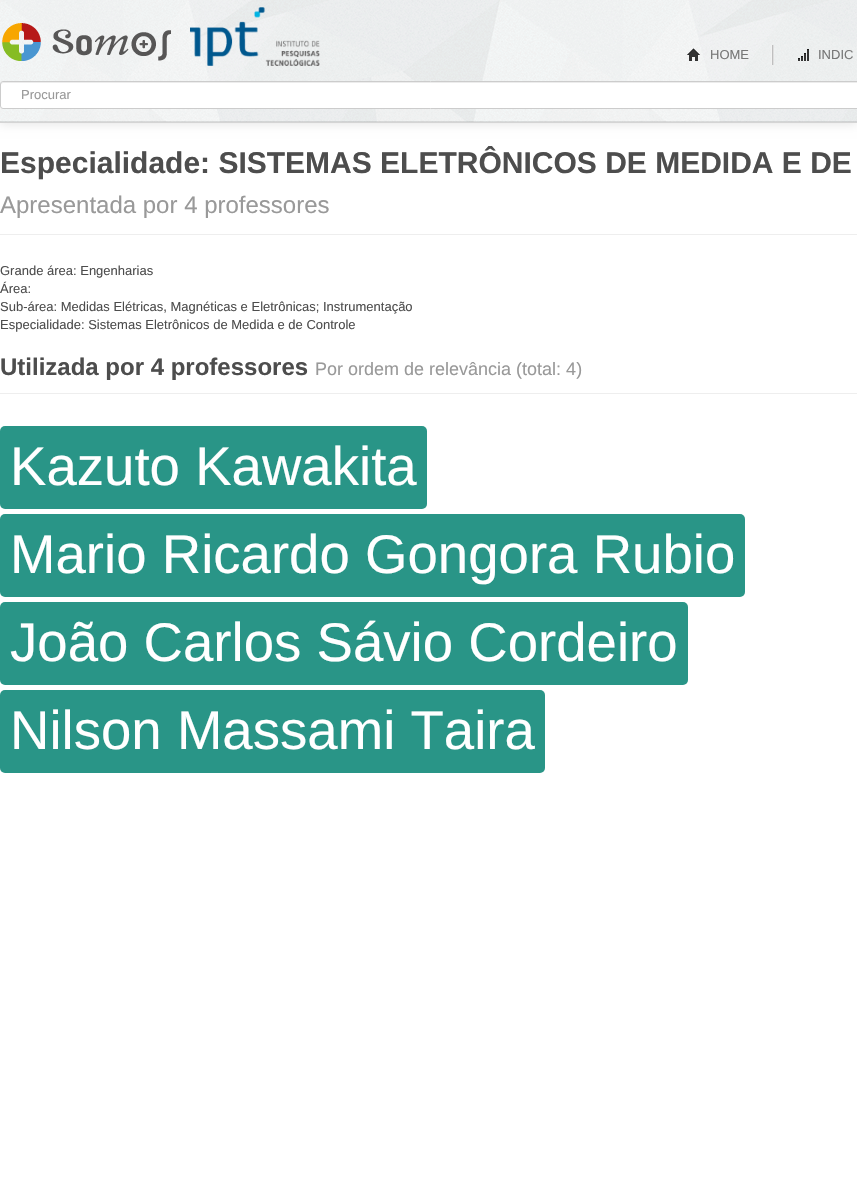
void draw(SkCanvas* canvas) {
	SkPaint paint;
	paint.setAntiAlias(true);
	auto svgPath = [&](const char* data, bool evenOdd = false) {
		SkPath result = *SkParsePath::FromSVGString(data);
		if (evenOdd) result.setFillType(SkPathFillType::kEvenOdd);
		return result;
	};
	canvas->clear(0xffffffff);
	paint.setColor(0x1a000000);
	paint.setMaskFilter(SkMaskFilter::MakeBlur(kNormal_SkBlurStyle, 5));
	canvas->drawRect(SkRect::MakeXYWH(0, 1, 857, 123), paint);
	paint.setMaskFilter(nullptr);
	canvas->drawImageRect(SkImages::DeferredFromEncodedData(SkData::MakeFromFileName("img1.png")), SkRect::MakeXYWH(0, 0, 857, 122), SkSamplingOptions());
	canvas->drawRect(SkRect::MakeXYWH(0, 121, 857, 1), paint);
	paint.setColor(0xffd4d4d4);
	canvas->drawRect(SkRect::MakeXYWH(0, 122, 857, 1), paint);
	canvas->drawImageRect(SkImages::DeferredFromEncodedData(SkData::MakeFromFileName("img2.png")), SkRect::MakeXYWH(2, 23, 169, 38), SkSamplingOptions());
	canvas->drawImageRect(SkImages::DeferredFromEncodedData(SkData::MakeFromFileName("img3.png")), SkRect::MakeXYWH(190, 7, 130, 59), SkSamplingOptions());
	canvas->drawImageRect(SkImages::DeferredFromEncodedData(SkData::MakeFromFileName("img4.png")), SkRect::MakeXYWH(687, 48, 13, 13), SkSamplingOptions());
	SkFont f1(fontMgr->matchFamilyStyle("Liberation Sans", SkFontStyle::Normal()), 13);
	f1.setSubpixel(true);
	paint.setColor(0xff777777);
	canvas->drawString("HOME", 710, 59, f1, paint);
	paint.setColor(0xffbfbfbf);
	canvas->drawRect(SkRect::MakeXYWH(772, 45, 1, 20), paint);
	paint.setColor(0xffdfdfdf);
	canvas->drawRect(SkRect::MakeXYWH(773, 45, 1, 20), paint);
	paint.setColor(0xfff2f2f2);
	canvas->drawRect(SkRect::MakeXYWH(771, 45, 1, 20), paint);
	canvas->drawImageRect(SkImages::DeferredFromEncodedData(SkData::MakeFromFileName("img5.png")), SkRect::MakeXYWH(798, 49, 11, 13), SkSamplingOptions());
	paint.setColor(0xff777777);
	canvas->drawString("INDIC", 818, 59, f1, paint);
	paint.setColor(0xffffffff);
	canvas->drawRoundRect(SkRect::MakeXYWH(0, 81, 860, 28), 3, 3, paint);
	paint.setColor(0xffececec);
	canvas->drawPath(svgPath("M3 83H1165C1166 83 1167 84 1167 85V83L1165 82H3C2 82 1 83 1 84V85C1 84 2 83 3 83Z"), paint);
	paint.setStroke(true);
	paint.setStrokeWidth(1);
	paint.setColor(0xffcccccc);
	canvas->drawRoundRect(SkRect::MakeXYWH(0.5, 81.5, 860, 27), 2.5, 2.5, paint);
	paint.setStroke(false);
	paint.setColor(0xff999999);
	canvas->drawString("Procurar", 21, 99, f1, paint);
	paint.setColor(0xffeeeeee);
	canvas->drawRect(SkRect::MakeXYWH(0, 234, 857, 1), paint);
	SkFont f2(fontMgr->matchFamilyStyle("Liberation Sans", SkFontStyle::Bold()), 30);
	f2.setSubpixel(true);
	paint.setColor(0xff4d4d4d);
	canvas->drawString("Especialidade: SISTEMAS ELETRÔNICOS DE MEDIDA E DE", 0, 173, f2, paint);
	SkFont f3(fontMgr->matchFamilyStyle("Liberation Sans", SkFontStyle::Normal()), 24);
	f3.setSubpixel(true);
	paint.setColor(0xff999999);
	canvas->drawString("Apresentada por 4 professores", 0, 213, f3, paint);
	paint.setColor(0xff4d4d4d);
	canvas->drawString("Grande área: Engenharias", 0, 275, f1, paint);
	canvas->drawString("Área:", 0, 293, f1, paint);
	canvas->drawString("Sub-área: Medidas Elétricas, Magnéticas e Eletrônicas; Instrumentação", 0, 311, f1, paint);
	canvas->drawString("Especialidade: Sistemas Eletrônicos de Medida e de Controle", 0, 329, f1, paint);
	paint.setColor(0xffeeeeee);
	canvas->drawRect(SkRect::MakeXYWH(0, 393, 857, 1), paint);
	SkFont f4(fontMgr->matchFamilyStyle("Liberation Sans", SkFontStyle::Bold()), 24);
	f4.setSubpixel(true);
	paint.setColor(0xff4d4d4d);
	canvas->drawString("Utilizada por 4 professores", 0, 375, f4, paint);
	SkFont f5(fontMgr->matchFamilyStyle("Liberation Sans", SkFontStyle::Normal()), 18);
	f5.setSubpixel(true);
	paint.setColor(0xff999999);
	canvas->drawString("Por ordem de relevância (total: 4)", 315, 375, f5, paint);
	paint.setColor(0xff299587);
	canvas->drawRoundRect(SkRect::MakeXYWH(0, 426, 427, 83), 5, 5, paint);
	SkFont f6(fontMgr->matchFamilyStyle("Liberation Sans", SkFontStyle::Normal()), 54.6);
	f6.setSubpixel(true);
	paint.setColor(0xffffffff);
	canvas->drawString("Kazuto Kawakita", 10, 485, f6, paint);
	paint.setColor(0xff299587);
	canvas->drawRoundRect(SkRect::MakeXYWH(0, 514, 745, 83), 5, 5, paint);
	paint.setColor(0xffffffff);
	canvas->drawString("Mario Ricardo Gongora Rubio", 10, 573, f6, paint);
	paint.setColor(0xff299587);
	canvas->drawRoundRect(SkRect::MakeXYWH(0, 602, 688, 83), 5, 5, paint);
	paint.setColor(0xffffffff);
	canvas->drawString("João Carlos Sávio Cordeiro", 10, 661, f6, paint);
	paint.setColor(0xff299587);
	canvas->drawRoundRect(SkRect::MakeXYWH(0, 690, 545, 83), 5, 5, paint);
	paint.setColor(0xffffffff);
	canvas->drawString("Nilson Massami Taira", 10, 749, f6, paint);
}
